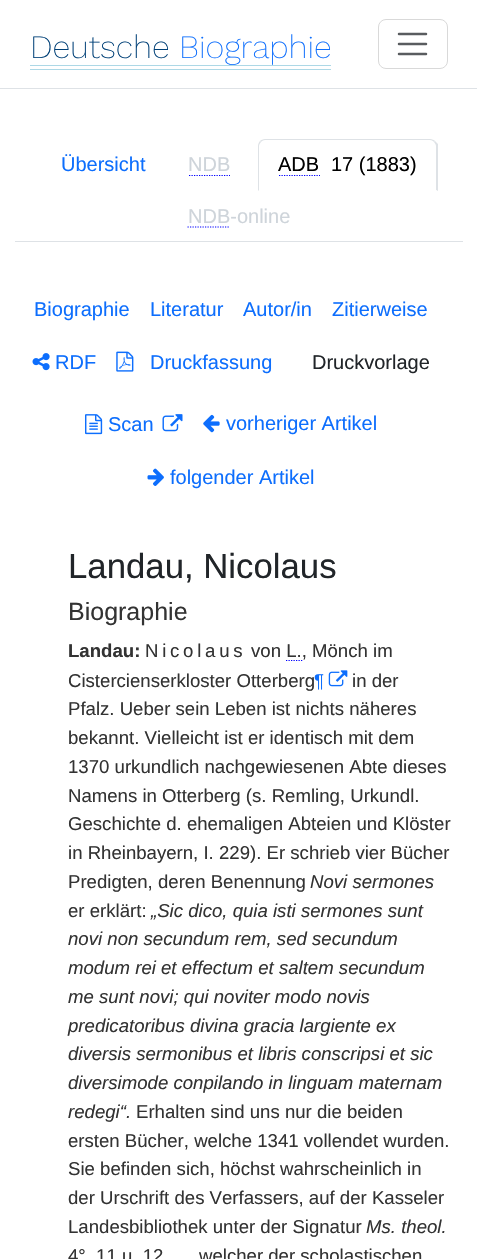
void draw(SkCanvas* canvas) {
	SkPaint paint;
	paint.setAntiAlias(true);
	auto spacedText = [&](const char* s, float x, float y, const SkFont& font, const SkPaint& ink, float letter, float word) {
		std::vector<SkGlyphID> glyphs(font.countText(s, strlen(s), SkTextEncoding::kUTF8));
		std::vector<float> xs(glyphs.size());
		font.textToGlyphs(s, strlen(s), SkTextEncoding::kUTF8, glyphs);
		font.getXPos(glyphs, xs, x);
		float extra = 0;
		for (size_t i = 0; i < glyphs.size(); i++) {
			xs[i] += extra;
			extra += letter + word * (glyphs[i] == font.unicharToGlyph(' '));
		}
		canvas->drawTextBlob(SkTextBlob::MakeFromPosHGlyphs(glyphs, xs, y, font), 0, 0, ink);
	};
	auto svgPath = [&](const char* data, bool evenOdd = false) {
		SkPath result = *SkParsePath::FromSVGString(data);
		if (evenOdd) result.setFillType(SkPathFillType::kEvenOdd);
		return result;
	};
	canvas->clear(0xffffffff);
	paint.setColor(0xffdee2e6);
	canvas->drawRect(SkRect::MakeXYWH(0, 88, 477, 1), paint);
	SkFont f1(fontMgr->matchFamilyStyle("Work Sans", SkFontStyle(200, SkFontStyle::kNormal_Width, SkFontStyle::kUpright_Slant)), 32.5);
	f1.setSubpixel(true);
	paint.setColor(0xff004077);
	canvas->drawString("Deutsche", 30, 58, f1, paint);
	paint.setColor(0xff0d6efd);
	canvas->drawString("Biographie", 179, 58, f1, paint);
	paint.setColor(0xffadd8e6);
	canvas->drawRect(SkRect::MakeXYWH(30, 65, 301, 1), paint);
	canvas->drawRect(SkRect::MakeXYWH(30, 69, 301, 1), paint);
	paint.setStroke(true);
	paint.setStrokeWidth(1);
	paint.setColor(0xffd9d9d9);
	canvas->drawRoundRect(SkRect::MakeXYWH(378.5, 19.5, 69, 49), 7.5, 7.5, paint);
	paint.setStrokeWidth(2.5);
	paint.setStrokeCap(SkPaint::kRound_Cap);
	paint.setColor(0xff595c5f);
	canvas->drawPath(svgPath("M399 34H426M399 44H426M399 54H426"), paint);
	paint.setStroke(false);
	paint.setColor(0xffdee2e6);
	canvas->drawRect(SkRect::MakeXYWH(15, 241, 448, 1), paint);
	SkFont f2(fontMgr->matchFamilyStyle("Liberation Sans", SkFontStyle::Normal()), 20);
	f2.setSubpixel(true);
	paint.setColor(0xff0d6efd);
	canvas->drawString("Übersicht", 61, 171, f2, paint);
	paint.setColor(0xffced4da);
	canvas->drawString("NDB", 188, 171, f2, paint);
	paint.setStroke(true);
	paint.setStrokeWidth(1.2);
	paint.setStrokeCap(SkPaint::kButt_Cap);
	paint.setColor(0xff0000ff);
	paint.setPathEffect(SkDashPathEffect::Make({{1.25f, 1.25f}}, 0));
	canvas->drawPath(svgPath("M189 175.5H230"), paint);
	paint.setPathEffect(nullptr);
	paint.setStroke(false);
	paint.setColor(0xffdee2e6);
	canvas->drawPath(svgPath("M265 139C263 139 261 140 260 141L261 142C262 141 263 140 265 140H430C432 140 433 141 434 142L435 141C434 140 432 139 430 139Z"), paint);
	canvas->drawPath(svgPath("M435 141L438 144V191L436 190V146C436 145 435 143 434 142Z"), paint);
	paint.setColor(0xffffffff);
	canvas->drawPath(svgPath("M437 191H258L259 190H436Z"), paint);
	paint.setColor(0xffdee2e6);
	canvas->drawPath(svgPath("M260 141C259 142 258 144 258 146V191L259 190V146C259 145 260 143 261 142Z"), paint);
	paint.setColor(0xff000000);
	canvas->drawString("ADB", 278, 171, f2, paint);
	paint.setStroke(true);
	paint.setColor(0xff0000ff);
	paint.setPathEffect(SkDashPathEffect::Make({{1.25f, 1.25f}}, 0));
	canvas->drawPath(svgPath("M279 175.5H320"), paint);
	paint.setPathEffect(nullptr);
	paint.setStroke(false);
	paint.setColor(0xff000000);
	canvas->drawString("17 (1883)", 331, 171, f2, paint);
	paint.setColor(0xffced4da);
	canvas->drawString("NDB-online", 188, 223, f2, paint);
	paint.setStroke(true);
	paint.setColor(0xff0000ff);
	paint.setPathEffect(SkDashPathEffect::Make({{1.25f, 1.25f}}, 0));
	canvas->drawPath(svgPath("M187.5 227H230"), paint);
	paint.setPathEffect(nullptr);
	paint.setStroke(false);
	paint.setColor(0xff0d6efd);
	canvas->drawString("Biographie", 34, 316, f2, paint);
	canvas->drawString("Literatur", 150, 316, f2, paint);
	canvas->drawString("Autor/in", 243, 316, f2, paint);
	canvas->drawString("Zitierweise", 332, 316, f2, paint);
	canvas->drawImageRect(SkImages::DeferredFromEncodedData(SkData::MakeFromFileName("img1.png")), SkRect::MakeXYWH(32, 353, 18, 18), SkSamplingOptions());
	canvas->drawString("RDF", 55, 369, f2, paint);
	canvas->drawImageRect(SkImages::DeferredFromEncodedData(SkData::MakeFromFileName("img2.png")), SkRect::MakeXYWH(116, 351, 18, 21), SkSamplingOptions());
	canvas->drawString("Druckfassung", 150, 369, f2, paint);
	paint.setColor(0xff212529);
	canvas->drawString("Druckvorlage", 312, 369, f2, paint);
	canvas->drawImageRect(SkImages::DeferredFromEncodedData(SkData::MakeFromFileName("img3.png")), SkRect::MakeXYWH(85, 414, 18, 21), SkSamplingOptions());
	paint.setColor(0xff0d6efd);
	canvas->drawString("Scan", 108, 431, f2, paint);
	canvas->drawImageRect(SkImages::DeferredFromEncodedData(SkData::MakeFromFileName("img4.png")), SkRect::MakeXYWH(162, 414, 21, 18), SkSamplingOptions());
	canvas->drawImageRect(SkImages::DeferredFromEncodedData(SkData::MakeFromFileName("img5.png")), SkRect::MakeXYWH(203, 414, 17, 19), SkSamplingOptions());
	canvas->drawString("vorheriger Artikel", 226, 430, f2, paint);
	canvas->drawImageRect(SkImages::DeferredFromEncodedData(SkData::MakeFromFileName("img6.png")), SkRect::MakeXYWH(147, 468, 17, 18), SkSamplingOptions());
	canvas->drawString("folgender Artikel", 170, 484, f2, paint);
	SkFont f3(fontMgr->matchFamilyStyle("Liberation Sans", SkFontStyle::Normal()), 34.75);
	f3.setSubpixel(true);
	paint.setColor(0xff212529);
	canvas->drawString("Landau, Nicolaus", 68, 578, f3, paint);
	SkFont f4(fontMgr->matchFamilyStyle("Liberation Sans", SkFontStyle::Normal()), 25);
	f4.setSubpixel(true);
	paint.setColor(0xff333333);
	canvas->drawString("Biographie", 68, 620, f4, paint);
	SkFont f5(fontMgr->matchFamilyStyle("Liberation Sans", SkFontStyle::Bold()), 18.6);
	f5.setSubpixel(true);
	canvas->drawString("Landau:", 68, 657, f5, paint);
	SkFont f6(fontMgr->matchFamilyStyle("Liberation Sans", SkFontStyle::Normal()), 18.6);
	f6.setSubpixel(true);
	spacedText("Nicolaus", 145, 657, f6, paint, 3.75, 0);
	canvas->drawString("von L., Mönch im", 251, 657, f6, paint);
	paint.setStroke(true);
	paint.setColor(0xff0000ff);
	paint.setPathEffect(SkDashPathEffect::Make({{1.25f, 1.25f}}, 0));
	canvas->drawPath(svgPath("M286 660.5H302.5"), paint);
	paint.setPathEffect(nullptr);
	paint.setStroke(false);
	paint.setColor(0xff333333);
	canvas->drawString("Cistercienserkloster Otterberg", 68, 687, f6, paint);
	paint.setColor(0xff0d6efd);
	canvas->drawString("¶", 314, 687, f6, paint);
	canvas->drawImageRect(SkImages::DeferredFromEncodedData(SkData::MakeFromFileName("img7.png")), SkRect::MakeXYWH(328, 670, 20, 17), SkSamplingOptions());
	paint.setColor(0xff333333);
	canvas->drawString("in der", 352, 687, f6, paint);
	canvas->drawString("Pfalz. Ueber sein Leben ist nichts näheres", 68, 715, f6, paint);
	canvas->drawString("bekannt. Vielleicht ist er identisch mit dem", 68, 744, f6, paint);
	canvas->drawString("1370 urkundlich nachgewiesenen Abte dieses", 68, 773, f6, paint);
	canvas->drawString("Namens in Otterberg (s. Remling, Urkundl.", 68, 802, f6, paint);
	canvas->drawString("Geschichte d. ehemaligen Abteien und Klöster", 68, 830, f6, paint);
	canvas->drawString("in Rheinbayern, I. 229). Er schrieb vier Bücher", 68, 859, f6, paint);
	canvas->drawString("Predigten, deren Benennung", 68, 888, f6, paint);
	SkFont f7(fontMgr->matchFamilyStyle("Liberation Sans", SkFontStyle::Italic()), 18.6);
	f7.setSubpixel(true);
	canvas->drawString("Novi sermones", 310, 888, f7, paint);
	canvas->drawString("er erklärt:", 68, 917, f6, paint);
	canvas->drawString("„Sic dico, quia isti sermones sunt", 151, 917, f7, paint);
	canvas->drawString("novi non secundum rem, sed secundum", 68, 945, f7, paint);
	canvas->drawString("modum rei et effectum et saltem secundum", 68, 974, f7, paint);
	canvas->drawString("me sunt novi; qui noviter modo novis", 68, 1003, f7, paint);
	canvas->drawString("predicatoribus divina gracia largiente ex", 68, 1032, f7, paint);
	canvas->drawString("diversis sermonibus et libris conscripsi et sic", 68, 1060, f7, paint);
	canvas->drawString("diversimode conpilando in linguam maternam", 68, 1089, f7, paint);
	canvas->drawString("redegi“.", 68, 1118, f7, paint);
	canvas->drawString("Erhalten sind uns nur die beiden", 136, 1118, f6, paint);
	canvas->drawString("ersten Bücher, welche 1341 vollendet wurden.", 68, 1147, f6, paint);
	canvas->drawString("Sie befinden sich, höchst wahrscheinlich in", 68, 1175, f6, paint);
	canvas->drawString("der Urschrift des Verfassers, auf der Kasseler", 68, 1204, f6, paint);
	canvas->drawString("Landesbibliothek unter der Signatur", 68, 1233, f6, paint);
	canvas->drawString("Ms. theol.", 366, 1233, f7, paint);
	canvas->drawString("4°. 11 u. 12", 68, 1262, f6, paint);
	canvas->drawString("welcher der scholastischen", 199, 1262, f6, paint);
}
